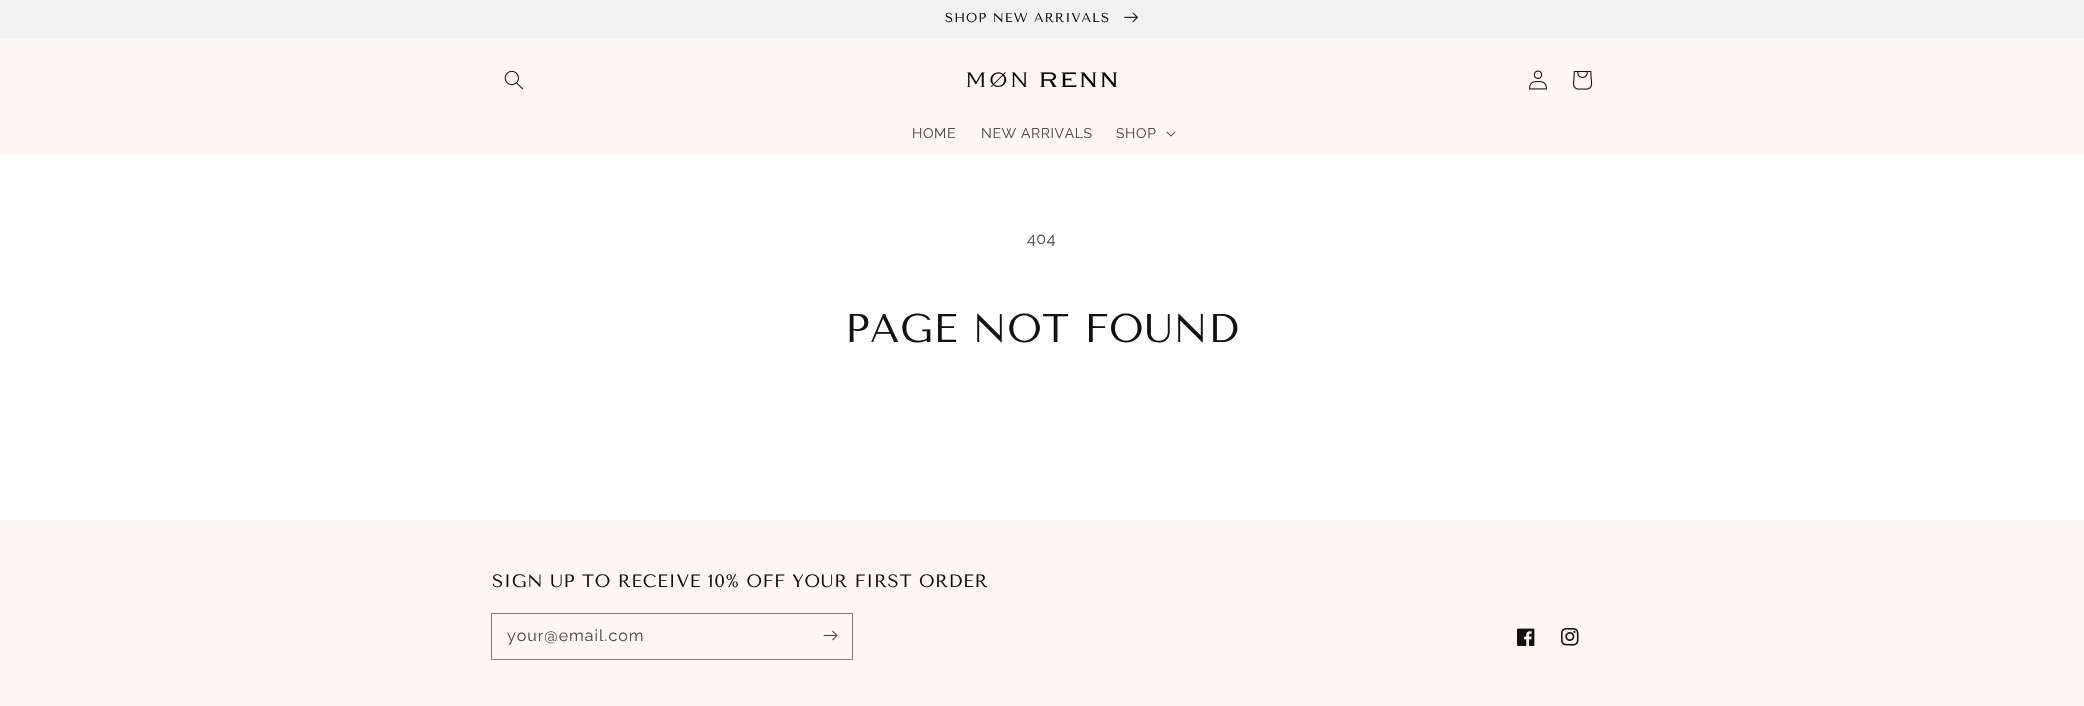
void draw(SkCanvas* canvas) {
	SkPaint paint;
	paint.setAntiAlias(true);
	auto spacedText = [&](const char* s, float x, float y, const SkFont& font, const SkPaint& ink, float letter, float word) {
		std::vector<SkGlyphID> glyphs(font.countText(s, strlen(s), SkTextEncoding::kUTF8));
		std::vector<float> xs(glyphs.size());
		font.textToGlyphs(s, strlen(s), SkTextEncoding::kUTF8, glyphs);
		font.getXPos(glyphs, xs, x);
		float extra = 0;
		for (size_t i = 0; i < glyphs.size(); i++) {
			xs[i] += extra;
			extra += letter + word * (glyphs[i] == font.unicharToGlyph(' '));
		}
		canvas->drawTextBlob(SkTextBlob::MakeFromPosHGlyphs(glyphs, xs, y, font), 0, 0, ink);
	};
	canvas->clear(0xffffffff);
	paint.setColor(0xffececec);
	canvas->drawRect(SkRect::MakeXYWH(0, 37, 2084, 1), paint);
	paint.setColor(0xfff1f1f1);
	canvas->drawRect(SkRect::MakeXYWH(0, 0, 2084, 37), paint);
	SkFont f1(fontMgr->matchFamilyStyle("Tenor Sans", SkFontStyle::Normal()), 13);
	f1.setSubpixel(true);
	paint.setColor(0xff121212);
	spacedText("SHOP NEW ARRIVALS", 945, 22, f1, paint, 1, 0);
	canvas->drawImageRect(SkImages::DeferredFromEncodedData(SkData::MakeFromFileName("img1.png")), SkRect::MakeXYWH(1124, 12, 14, 11), SkSamplingOptions());
	paint.setColor(0xfffff8f2);
	canvas->drawRect(SkRect::MakeXYWH(0, 38, 2084, 117), paint);
	canvas->drawImageRect(SkImages::DeferredFromEncodedData(SkData::MakeFromFileName("img2.png")), SkRect::MakeXYWH(504, 70, 19, 20), SkSamplingOptions());
	canvas->drawImageRect(SkImages::DeferredFromEncodedData(SkData::MakeFromFileName("img3.png")), SkRect::MakeXYWH(967, 72, 150, 15), SkSamplingOptions());
	canvas->drawImageRect(SkImages::DeferredFromEncodedData(SkData::MakeFromFileName("img4.png")), SkRect::MakeXYWH(1529, 70, 18, 20), SkSamplingOptions());
	canvas->drawImageRect(SkImages::DeferredFromEncodedData(SkData::MakeFromFileName("img5.png")), SkRect::MakeXYWH(1573, 71, 20, 19), SkSamplingOptions());
	SkFont f2(fontMgr->matchFamilyStyle("Raleway", SkFontStyle::Normal()), 14);
	f2.setSubpixel(true);
	paint.setColor(0xff4d4d4d);
	spacedText("HOME", 912, 138, f2, paint, 0.6, 0);
	spacedText("NEW ARRIVALS", 981, 138, f2, paint, 0.6, 0);
	spacedText("SHOP", 1116, 138, f2, paint, 0.6, 0);
	canvas->drawImageRect(SkImages::DeferredFromEncodedData(SkData::MakeFromFileName("img6.png")), SkRect::MakeXYWH(1166, 131, 10, 6), SkSamplingOptions());
	SkFont f3(fontMgr->matchFamilyStyle("Raleway", SkFontStyle::Normal()), 16);
	f3.setSubpixel(true);
	spacedText("404", 1027, 244, f3, paint, 0.6, 0);
	SkFont f4(fontMgr->matchFamilyStyle("Tenor Sans", SkFontStyle::Normal()), 40);
	f4.setSubpixel(true);
	paint.setColor(0xff121212);
	spacedText("PAGE NOT FOUND", 845, 342, f4, paint, 0.6, 0);
	paint.setColor(0xfffff8f2);
	canvas->drawRect(SkRect::MakeXYWH(0, 520, 2084, 186), paint);
	SkFont f5(fontMgr->matchFamilyStyle("Tenor Sans", SkFontStyle::Normal()), 18);
	f5.setSubpixel(true);
	paint.setColor(0xff121212);
	spacedText("SIGN UP TO RECEIVE 10% OFF YOUR FIRST ORDER", 492, 587, f5, paint, 0.6, 0);
	paint.setStroke(true);
	paint.setStrokeWidth(1);
	paint.setColor(0xff7d7a77);
	canvas->drawRect(SkRect::MakeXYWH(491.5, 613.5, 361, 46), paint);
	paint.setStroke(false);
	paint.setColor(0xff4d4d4d);
	spacedText("your@email.com", 507, 641, f3, paint, 1, 0);
	canvas->drawImageRect(SkImages::DeferredFromEncodedData(SkData::MakeFromFileName("img7.png")), SkRect::MakeXYWH(823, 630, 15, 11), SkSamplingOptions());
	canvas->drawImageRect(SkImages::DeferredFromEncodedData(SkData::MakeFromFileName("img8.png")), SkRect::MakeXYWH(1517, 628, 18, 18), SkSamplingOptions());
	canvas->drawImageRect(SkImages::DeferredFromEncodedData(SkData::MakeFromFileName("img9.png")), SkRect::MakeXYWH(1561, 628, 18, 18), SkSamplingOptions());
}
